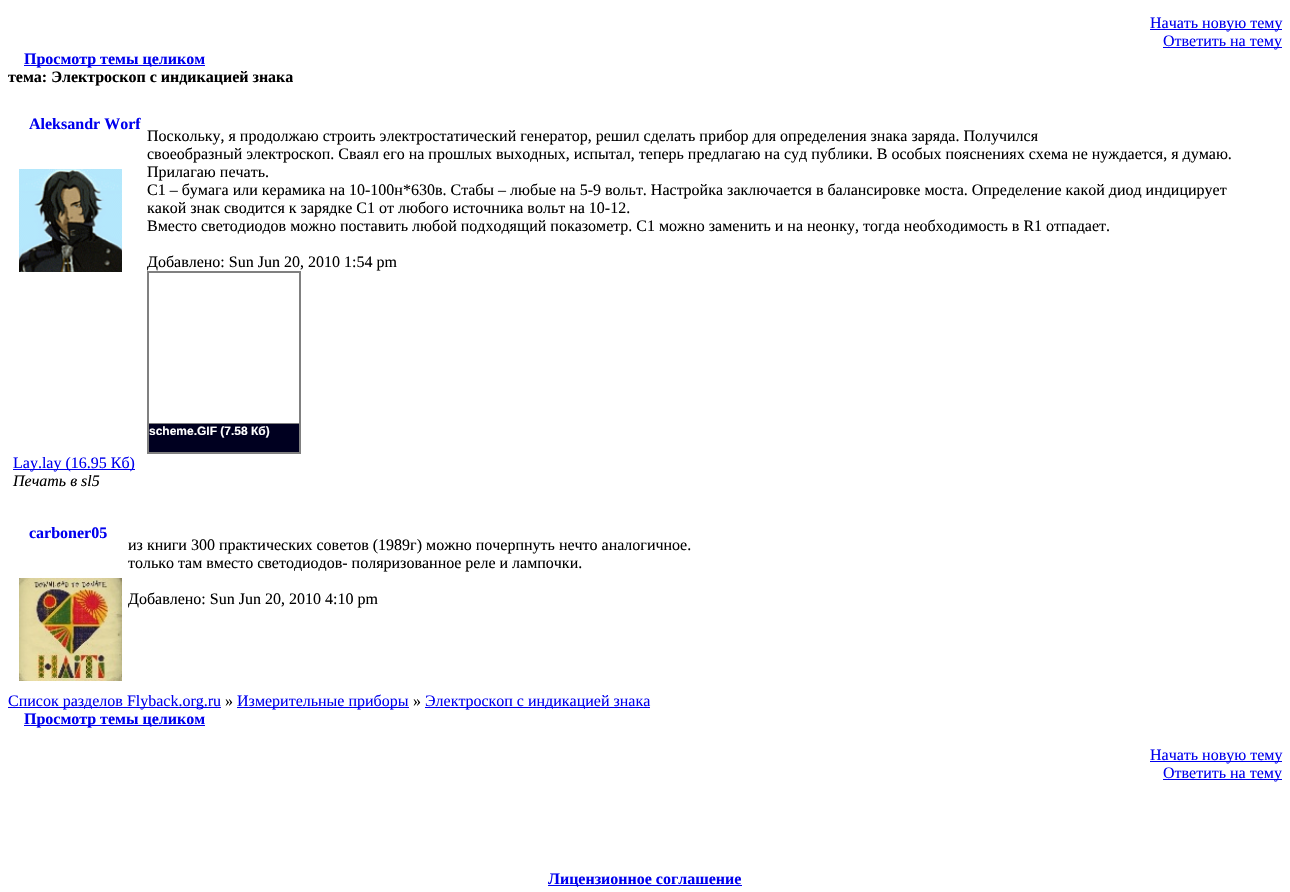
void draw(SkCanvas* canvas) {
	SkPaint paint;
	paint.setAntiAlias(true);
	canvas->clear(0xffffffff);
	paint.setColor(0xff0000ee);
	canvas->drawRect(SkRect::MakeXYWH(1150, 29, 132, 1), paint);
	SkFont f1(fontMgr->matchFamilyStyle("Liberation Serif", SkFontStyle::Normal()), 16);
	f1.setSubpixel(true);
	canvas->drawString("Начать новую тему", 1150, 28, f1, paint);
	canvas->drawRect(SkRect::MakeXYWH(1163, 47, 119, 1), paint);
	canvas->drawString("Ответить на тему", 1163, 46, f1, paint);
	canvas->drawRect(SkRect::MakeXYWH(24, 65, 181, 1), paint);
	SkFont f2(fontMgr->matchFamilyStyle("Liberation Serif", SkFontStyle::Bold()), 16);
	f2.setSubpixel(true);
	canvas->drawString("Просмотр темы целиком", 24, 64, f2, paint);
	paint.setColor(0xff000000);
	canvas->drawString("тема: Электроскоп с индикацией знака", 8, 82, f2, paint);
	paint.setColor(0xff0000ee);
	canvas->drawString("Aleksandr Worf", 29, 129, f2, paint);
	canvas->drawImageRect(SkImages::DeferredFromEncodedData(SkData::MakeFromFileName("img1.png")), SkRect::MakeXYWH(19, 169, 103, 103), SkSamplingOptions());
	paint.setColor(0xff000000);
	canvas->drawString("Поскольку, я продолжаю строить электростатический генератор, решил сделать прибор для определения знака заряда. Получился", 147, 141, f1, paint);
	canvas->drawString("своеобразный электроскоп. Сваял его на прошлых выходных, испытал, теперь предлагаю на суд публики. В особых пояснениях схема не нуждается, я думаю.", 147, 159, f1, paint);
	canvas->drawString("Прилагаю печать.", 147, 177, f1, paint);
	canvas->drawString("С1 – бумага или керамика на 10-100н*630в. Стабы – любые на 5-9 вольт. Настройка заключается в балансировке моста. Определение какой диод индицирует", 147, 195, f1, paint);
	canvas->drawString("какой знак сводится к зарядке С1 от любого источника вольт на 10-12.", 147, 213, f1, paint);
	canvas->drawString("Вместо светодиодов можно поставить любой подходящий показометр. C1 можно заменить и на неонку, тогда необходимость в R1 отпадает.", 147, 231, f1, paint);
	canvas->drawString("Добавлено: Sun Jun 20, 2010 1:54 pm", 147, 267, f1, paint);
	paint.setColor(0xff808080);
	canvas->drawRect(SkRect::MakeXYWH(147, 271, 154, 2), paint);
	canvas->drawRect(SkRect::MakeXYWH(147, 423, 153, 1), paint);
	canvas->drawRect(SkRect::MakeXYWH(299, 271, 2, 183), paint);
	canvas->drawRect(SkRect::MakeXYWH(147, 452, 154, 2), paint);
	canvas->drawRect(SkRect::MakeXYWH(147, 271, 2, 183), paint);
	paint.setColor(0xff000020);
	canvas->drawRect(SkRect::MakeXYWH(149, 424, 150, 28), paint);
	SkFont f3(fontMgr->matchFamilyStyle("Liberation Sans", SkFontStyle::Bold()), 12);
	f3.setSubpixel(true);
	paint.setColor(0xffffffff);
	canvas->drawString("scheme.GIF (7.58 Кб)", 149, 435, f3, paint);
	paint.setColor(0xff0000ee);
	canvas->drawRect(SkRect::MakeXYWH(13, 469, 122, 1), paint);
	canvas->drawString("Lay.lay (16.95 Кб)", 13, 468, f1, paint);
	SkFont f4(fontMgr->matchFamilyStyle("Liberation Serif", SkFontStyle::Italic()), 16);
	f4.setSubpixel(true);
	paint.setColor(0xff000000);
	canvas->drawString("Печать в sl5", 13, 486, f4, paint);
	paint.setColor(0xff0000ee);
	canvas->drawString("carboner05", 29, 538, f2, paint);
	canvas->drawImageRect(SkImages::DeferredFromEncodedData(SkData::MakeFromFileName("img2.png")), SkRect::MakeXYWH(19, 578, 103, 103), SkSamplingOptions());
	paint.setColor(0xff000000);
	canvas->drawString("из книги 300 практических советов (1989г) можно почерпнуть нечто аналогичное.", 128, 550, f1, paint);
	canvas->drawString("только там вместо светодиодов- поляризованное реле и лампочки.", 128, 568, f1, paint);
	canvas->drawString("Добавлено: Sun Jun 20, 2010 4:10 pm", 128, 604, f1, paint);
	paint.setColor(0xff0000ee);
	canvas->drawRect(SkRect::MakeXYWH(8, 707, 213, 1), paint);
	canvas->drawString("Список разделов Flyback.org.ru", 8, 706, f1, paint);
	paint.setColor(0xff000000);
	canvas->drawString("»", 225, 706, f1, paint);
	paint.setColor(0xff0000ee);
	canvas->drawRect(SkRect::MakeXYWH(237, 707, 172, 1), paint);
	canvas->drawString("Измерительные приборы", 237, 706, f1, paint);
	paint.setColor(0xff000000);
	canvas->drawString("»", 413, 706, f1, paint);
	paint.setColor(0xff0000ee);
	canvas->drawRect(SkRect::MakeXYWH(425, 707, 225, 1), paint);
	canvas->drawString("Электроскоп с индикацией знака", 425, 706, f1, paint);
	canvas->drawRect(SkRect::MakeXYWH(24, 725, 181, 1), paint);
	canvas->drawString("Просмотр темы целиком", 24, 724, f2, paint);
	canvas->drawRect(SkRect::MakeXYWH(1150, 761, 132, 1), paint);
	canvas->drawString("Начать новую тему", 1150, 760, f1, paint);
	canvas->drawRect(SkRect::MakeXYWH(1163, 779, 119, 1), paint);
	canvas->drawString("Ответить на тему", 1163, 778, f1, paint);
	canvas->drawRect(SkRect::MakeXYWH(548, 885, 194, 1), paint);
	canvas->drawString("Лицензионное соглашение", 548, 884, f2, paint);
}
